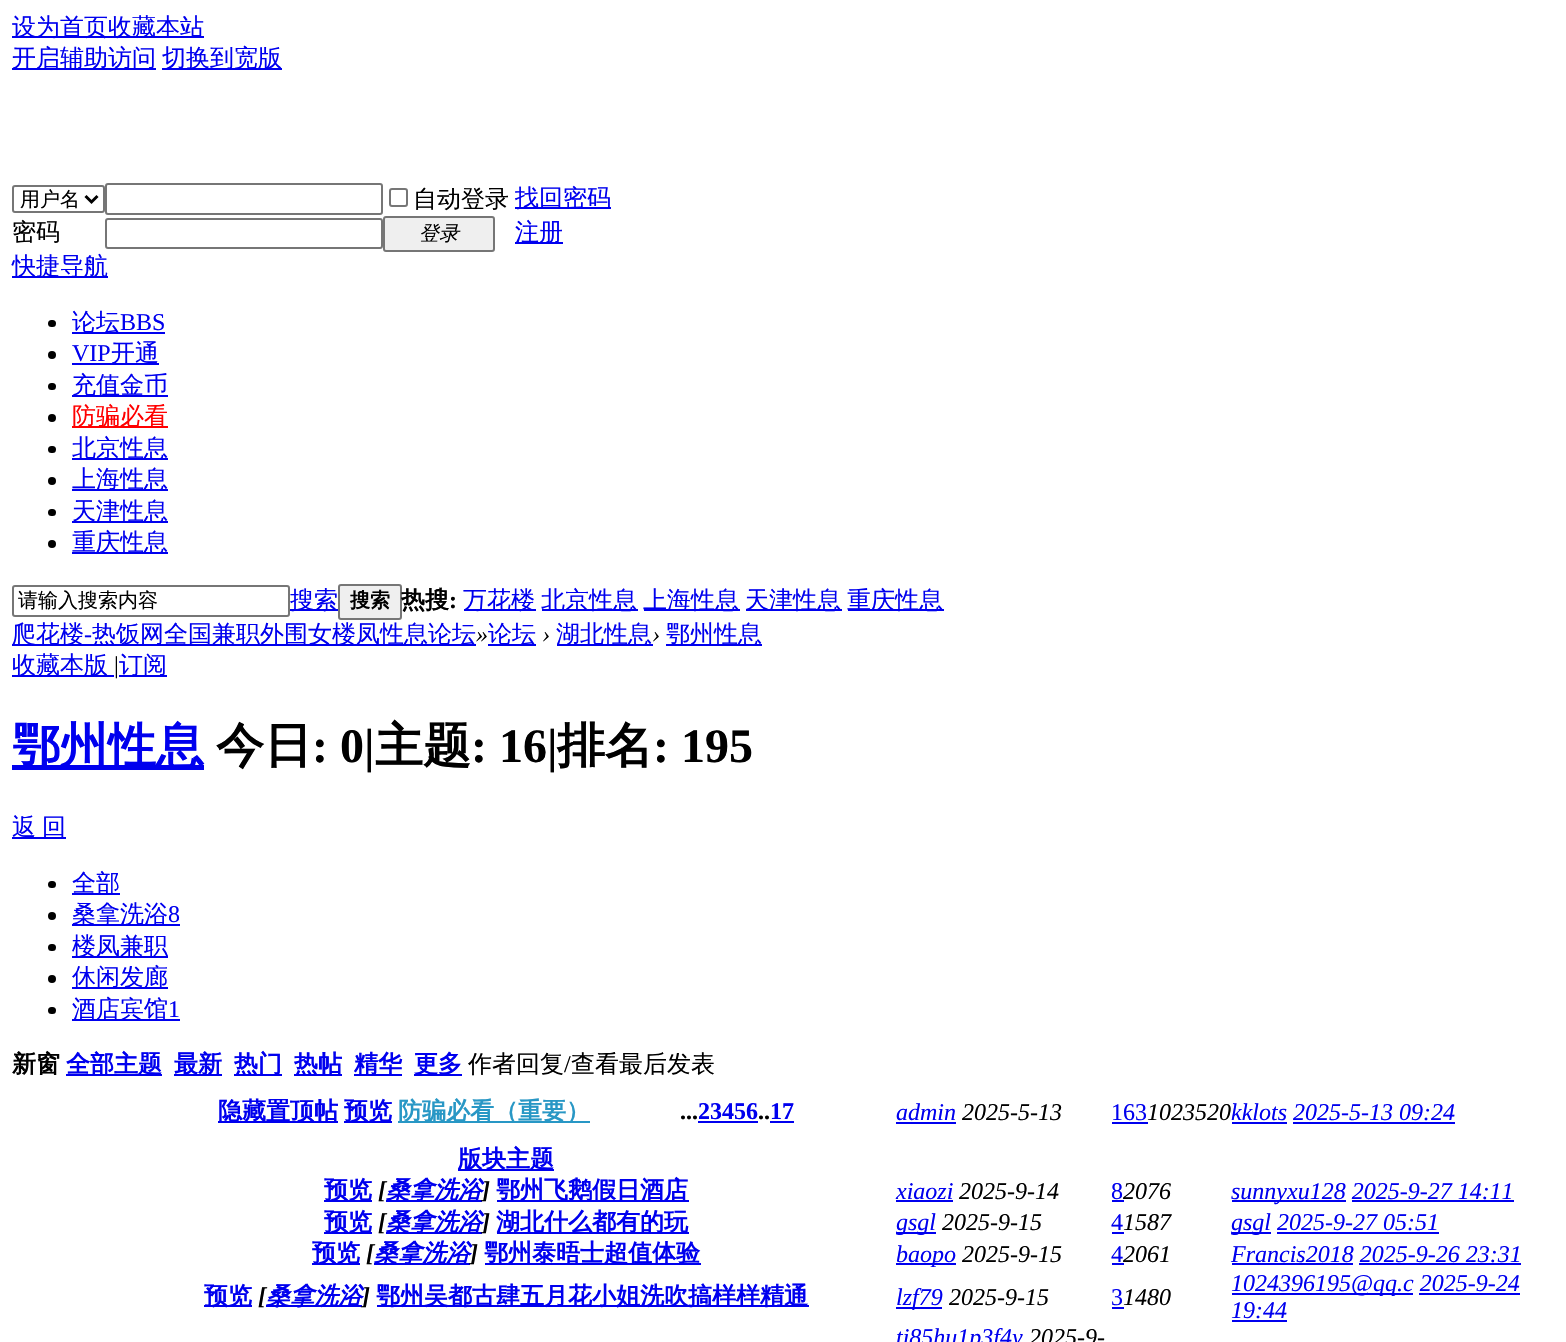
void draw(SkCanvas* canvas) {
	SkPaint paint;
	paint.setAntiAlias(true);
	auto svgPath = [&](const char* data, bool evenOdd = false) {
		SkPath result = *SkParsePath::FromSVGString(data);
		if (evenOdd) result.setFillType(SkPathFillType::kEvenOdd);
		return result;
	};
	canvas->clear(0xffffffff);
	paint.setColor(0xff0000ee);
	canvas->drawRect(SkRect::MakeXYWH(12, 36, 192, 2), paint);
	SkFont f1(fontMgr->matchFamilyStyle("WenQuanYi Zen Hei", SkFontStyle(500, SkFontStyle::kNormal_Width, SkFontStyle::kUpright_Slant)), 24);
	f1.setSubpixel(true);
	canvas->drawString("设为首页收藏本站", 12, 35, f1, paint);
	canvas->drawRect(SkRect::MakeXYWH(12, 68, 144, 2), paint);
	canvas->drawString("开启辅助访问", 12, 66, f1, paint);
	canvas->drawRect(SkRect::MakeXYWH(162, 68, 120, 2), paint);
	canvas->drawString("切换到宽版", 162, 66, f1, paint);
	paint.setStroke(true);
	paint.setStrokeWidth(2);
	paint.setColor(0xff767676);
	canvas->drawRoundRect(SkRect::MakeXYWH(13, 186, 91, 26), 2, 2, paint);
	paint.setStrokeWidth(3);
	paint.setColor(0xff000000);
	canvas->drawPath(svgPath("M85.5 196L91.5 202L97.5 196"), paint);
	SkFont f2(fontMgr->matchFamilyStyle("WenQuanYi Zen Hei", SkFontStyle(500, SkFontStyle::kNormal_Width, SkFontStyle::kUpright_Slant)), 20);
	f2.setSubpixel(true);
	paint.setStroke(false);
	canvas->drawString("用户名", 20, 206, f2, paint);
	paint.setStroke(true);
	paint.setStrokeWidth(2);
	paint.setColor(0xff767676);
	canvas->drawRoundRect(SkRect::MakeXYWH(106, 184, 276, 30), 2, 2, paint);
	canvas->drawRoundRect(SkRect::MakeXYWH(390, 189, 17, 17), 2, 2, paint);
	paint.setStroke(false);
	paint.setColor(0xff000000);
	canvas->drawString("自动登录", 413, 207, f1, paint);
	paint.setColor(0xff0000ee);
	canvas->drawRect(SkRect::MakeXYWH(515, 207, 96, 2), paint);
	canvas->drawString("找回密码", 515, 206, f1, paint);
	paint.setColor(0xff000000);
	canvas->drawString("密码", 12, 240, f1, paint);
	paint.setStroke(true);
	paint.setColor(0xff767676);
	canvas->drawRoundRect(SkRect::MakeXYWH(106, 219, 276, 29), 2, 2, paint);
	paint.setStroke(false);
	paint.setColor(0xffefefef);
	canvas->drawRoundRect(SkRect::MakeXYWH(384, 217, 110, 34), 2, 2, paint);
	paint.setStroke(true);
	paint.setColor(0xff767676);
	canvas->drawRoundRect(SkRect::MakeXYWH(384, 217, 110, 34), 2, 2, paint);
	SkFont f3(fontMgr->matchFamilyStyle("WenQuanYi Zen Hei", SkFontStyle(500, SkFontStyle::kNormal_Width, SkFontStyle::kItalic_Slant)), 20);
	f3.setSubpixel(true);
	paint.setStroke(false);
	paint.setColor(0xff000000);
	canvas->drawString("登录", 419, 240, f3, paint);
	paint.setColor(0xff0000ee);
	canvas->drawRect(SkRect::MakeXYWH(515, 242, 48, 2), paint);
	canvas->drawString("注册", 515, 240, f1, paint);
	canvas->drawRect(SkRect::MakeXYWH(12, 276, 96, 2), paint);
	canvas->drawString("快捷导航", 12, 274, f1, paint);
	paint.setColor(0xff000000);
	canvas->drawRoundRect(SkRect::MakeXYWH(48, 320, 8, 7), 3.5, 3.5, paint);
	paint.setColor(0xff0000ee);
	canvas->drawRect(SkRect::MakeXYWH(72, 332, 93, 2), paint);
	canvas->drawString("论坛", 72, 330, f1, paint);
	SkFont f4(fontMgr->matchFamilyStyle("Liberation Serif", SkFontStyle::Normal()), 24);
	f4.setSubpixel(true);
	canvas->drawString("BBS", 120, 330, f4, paint);
	paint.setColor(0xff000000);
	canvas->drawCircle(52, 355, 4, paint);
	paint.setColor(0xff0000ee);
	canvas->drawString("VIP", 72, 361, f4, paint);
	canvas->drawRect(SkRect::MakeXYWH(72, 363, 87, 2), paint);
	canvas->drawString("开通", 111, 361, f1, paint);
	paint.setColor(0xff000000);
	canvas->drawRoundRect(SkRect::MakeXYWH(48, 383, 8, 7), 3.5, 3.5, paint);
	paint.setColor(0xff0000ee);
	canvas->drawRect(SkRect::MakeXYWH(72, 395, 96, 2), paint);
	canvas->drawString("充值金币", 72, 393, f1, paint);
	paint.setColor(0xff000000);
	canvas->drawCircle(52, 418, 4, paint);
	paint.setColor(0xffff0000);
	canvas->drawRect(SkRect::MakeXYWH(72, 426, 96, 2), paint);
	canvas->drawString("防骗必看", 72, 424, f1, paint);
	paint.setColor(0xff000000);
	canvas->drawRoundRect(SkRect::MakeXYWH(48, 446, 8, 7), 3.5, 3.5, paint);
	paint.setColor(0xff0000ee);
	canvas->drawRect(SkRect::MakeXYWH(72, 458, 96, 2), paint);
	canvas->drawString("北京性息", 72, 456, f1, paint);
	paint.setColor(0xff000000);
	canvas->drawCircle(52, 481, 4, paint);
	paint.setColor(0xff0000ee);
	canvas->drawRect(SkRect::MakeXYWH(72, 489, 96, 2), paint);
	canvas->drawString("上海性息", 72, 487, f1, paint);
	paint.setColor(0xff000000);
	canvas->drawRoundRect(SkRect::MakeXYWH(48, 509, 8, 7), 3.5, 3.5, paint);
	paint.setColor(0xff0000ee);
	canvas->drawRect(SkRect::MakeXYWH(72, 521, 96, 2), paint);
	canvas->drawString("天津性息", 72, 519, f1, paint);
	paint.setColor(0xff000000);
	canvas->drawCircle(52, 544, 4, paint);
	paint.setColor(0xff0000ee);
	canvas->drawRect(SkRect::MakeXYWH(72, 552, 96, 2), paint);
	canvas->drawString("重庆性息", 72, 550, f1, paint);
	paint.setStroke(true);
	paint.setColor(0xff767676);
	canvas->drawRoundRect(SkRect::MakeXYWH(13, 586, 276, 30), 2, 2, paint);
	paint.setStroke(false);
	paint.setColor(0xff000000);
	canvas->drawString("请输入搜索内容", 18, 607, f2, paint);
	paint.setColor(0xff0000ee);
	canvas->drawRect(SkRect::MakeXYWH(290, 609, 48, 2), paint);
	canvas->drawString("搜索", 290, 608, f1, paint);
	paint.setColor(0xffefefef);
	canvas->drawRoundRect(SkRect::MakeXYWH(339, 585, 62, 34), 2, 2, paint);
	paint.setStroke(true);
	paint.setColor(0xff767676);
	canvas->drawRoundRect(SkRect::MakeXYWH(339, 585, 62, 34), 2, 2, paint);
	SkFont f5(fontMgr->matchFamilyStyle("WenQuanYi Zen Hei", SkFontStyle::Bold()), 20);
	f5.setSubpixel(true);
	paint.setStroke(false);
	paint.setColor(0xff000000);
	canvas->drawString("搜索", 350, 607, f5, paint);
	SkFont f6(fontMgr->matchFamilyStyle("WenQuanYi Zen Hei", SkFontStyle::Bold()), 24);
	f6.setSubpixel(true);
	canvas->drawString("热搜", 401, 608, f6, paint);
	SkFont f7(fontMgr->matchFamilyStyle("Liberation Serif", SkFontStyle::Bold()), 24);
	f7.setSubpixel(true);
	canvas->drawString(":", 449, 608, f7, paint);
	paint.setColor(0xff0000ee);
	canvas->drawRect(SkRect::MakeXYWH(464, 609, 72, 2), paint);
	canvas->drawString("万花楼", 463, 608, f1, paint);
	canvas->drawRect(SkRect::MakeXYWH(542, 609, 96, 2), paint);
	canvas->drawString("北京性息", 541, 608, f1, paint);
	canvas->drawRect(SkRect::MakeXYWH(644, 609, 96, 2), paint);
	canvas->drawString("上海性息", 643, 608, f1, paint);
	canvas->drawRect(SkRect::MakeXYWH(746, 609, 96, 2), paint);
	canvas->drawString("天津性息", 745, 608, f1, paint);
	canvas->drawRect(SkRect::MakeXYWH(848, 609, 96, 2), paint);
	canvas->drawString("重庆性息", 847, 608, f1, paint);
	canvas->drawRect(SkRect::MakeXYWH(12, 644, 464, 2), paint);
	canvas->drawString("爬花楼", 12, 642, f1, paint);
	canvas->drawString("-", 84, 642, f4, paint);
	canvas->drawString("热饭网全国兼职外围女楼凤性息论坛", 92, 642, f1, paint);
	SkFont f8(fontMgr->matchFamilyStyle("Liberation Serif", SkFontStyle::Italic()), 24);
	f8.setSubpixel(true);
	paint.setColor(0xff000000);
	canvas->drawString("»", 476, 642, f8, paint);
	paint.setColor(0xff0000ee);
	canvas->drawRect(SkRect::MakeXYWH(488, 644, 48, 2), paint);
	canvas->drawString("论坛", 488, 642, f1, paint);
	paint.setColor(0xff000000);
	canvas->drawString("›", 542, 642, f8, paint);
	paint.setColor(0xff0000ee);
	canvas->drawRect(SkRect::MakeXYWH(557, 644, 96, 2), paint);
	canvas->drawString("湖北性息", 556, 642, f1, paint);
	paint.setColor(0xff000000);
	canvas->drawString("›", 652, 642, f8, paint);
	paint.setColor(0xff0000ee);
	canvas->drawRect(SkRect::MakeXYWH(666, 644, 96, 2), paint);
	canvas->drawString("鄂州性息", 666, 642, f1, paint);
	canvas->drawRect(SkRect::MakeXYWH(12, 675, 102, 2), paint);
	canvas->drawString("收藏本版", 12, 673, f1, paint);
	paint.setColor(0xff000000);
	canvas->drawString("|", 114, 673, f4, paint);
	paint.setColor(0xff0000ee);
	canvas->drawRect(SkRect::MakeXYWH(119, 675, 48, 2), paint);
	canvas->drawString("订阅", 119, 673, f1, paint);
	canvas->drawRect(SkRect::MakeXYWH(12, 765, 192, 5), paint);
	SkFont f9(fontMgr->matchFamilyStyle("WenQuanYi Zen Hei", SkFontStyle::Bold()), 48);
	f9.setSubpixel(true);
	canvas->drawString("鄂州性息", 12, 762, f9, paint);
	paint.setColor(0xff000000);
	canvas->drawString("今日", 216, 762, f9, paint);
	SkFont f10(fontMgr->matchFamilyStyle("Liberation Serif", SkFontStyle::Bold()), 48);
	f10.setSubpixel(true);
	canvas->drawString(": 0|", 312, 762, f10, paint);
	canvas->drawString("主题", 375, 762, f9, paint);
	canvas->drawString(": 16|", 471, 762, f10, paint);
	canvas->drawString("排名", 557, 762, f9, paint);
	canvas->drawString(": 195", 653, 762, f10, paint);
	paint.setColor(0xff0000ee);
	canvas->drawRect(SkRect::MakeXYWH(12, 837, 54, 2), paint);
	canvas->drawString("返", 12, 835, f1, paint);
	canvas->drawString("回", 42, 835, f1, paint);
	paint.setColor(0xff000000);
	canvas->drawRoundRect(SkRect::MakeXYWH(48, 881, 8, 7), 3.5, 3.5, paint);
	paint.setColor(0xff0000ee);
	canvas->drawRect(SkRect::MakeXYWH(72, 893, 48, 2), paint);
	canvas->drawString("全部", 72, 891, f1, paint);
	paint.setColor(0xff000000);
	canvas->drawCircle(52, 916, 4, paint);
	paint.setColor(0xff0000ee);
	canvas->drawRect(SkRect::MakeXYWH(72, 924, 108, 2), paint);
	canvas->drawString("桑拿洗浴", 72, 922, f1, paint);
	canvas->drawString("8", 168, 922, f4, paint);
	paint.setColor(0xff000000);
	canvas->drawRoundRect(SkRect::MakeXYWH(48, 944, 8, 7), 3.5, 3.5, paint);
	paint.setColor(0xff0000ee);
	canvas->drawRect(SkRect::MakeXYWH(72, 956, 96, 2), paint);
	canvas->drawString("楼凤兼职", 72, 954, f1, paint);
	paint.setColor(0xff000000);
	canvas->drawCircle(52, 979, 4, paint);
	paint.setColor(0xff0000ee);
	canvas->drawRect(SkRect::MakeXYWH(72, 987, 96, 2), paint);
	canvas->drawString("休闲发廊", 72, 985, f1, paint);
	paint.setColor(0xff000000);
	canvas->drawRoundRect(SkRect::MakeXYWH(48, 1007, 8, 7), 3.5, 3.5, paint);
	paint.setColor(0xff0000ee);
	canvas->drawRect(SkRect::MakeXYWH(72, 1019, 108, 2), paint);
	canvas->drawString("酒店宾馆", 72, 1017, f1, paint);
	canvas->drawString("1", 168, 1017, f4, paint);
	paint.setColor(0xff000000);
	canvas->drawString("新窗", 12, 1072, f6, paint);
	paint.setColor(0xff0000ee);
	canvas->drawRect(SkRect::MakeXYWH(66, 1074, 96, 2), paint);
	canvas->drawString("全部主题", 66, 1072, f6, paint);
	canvas->drawRect(SkRect::MakeXYWH(174, 1074, 48, 2), paint);
	canvas->drawString("最新", 174, 1072, f6, paint);
	canvas->drawRect(SkRect::MakeXYWH(234, 1074, 48, 2), paint);
	canvas->drawString("热门", 234, 1072, f6, paint);
	canvas->drawRect(SkRect::MakeXYWH(294, 1074, 48, 2), paint);
	canvas->drawString("热帖", 294, 1072, f6, paint);
	canvas->drawRect(SkRect::MakeXYWH(354, 1074, 48, 2), paint);
	canvas->drawString("精华", 354, 1072, f6, paint);
	canvas->drawRect(SkRect::MakeXYWH(414, 1074, 48, 2), paint);
	canvas->drawString("更多", 414, 1072, f6, paint);
	paint.setColor(0xff000000);
	canvas->drawString("作者回复", 468, 1072, f1, paint);
	canvas->drawString("/", 564, 1072, f4, paint);
	canvas->drawString("查看最后发表", 571, 1072, f1, paint);
	paint.setColor(0xff0000ee);
	canvas->drawRect(SkRect::MakeXYWH(218, 1121, 120, 2), paint);
	canvas->drawString("隐藏置顶帖", 218, 1119, f6, paint);
	canvas->drawRect(SkRect::MakeXYWH(344, 1121, 48, 2), paint);
	canvas->drawString("预览", 344, 1119, f6, paint);
	paint.setColor(0xff2897c5);
	canvas->drawRect(SkRect::MakeXYWH(398, 1121, 192, 2), paint);
	canvas->drawString("防骗必看（重要）", 398, 1119, f6, paint);
	paint.setColor(0xff000000);
	canvas->drawString("...", 680, 1119, f7, paint);
	paint.setColor(0xff0000ee);
	canvas->drawRect(SkRect::MakeXYWH(698, 1121, 60, 2), paint);
	canvas->drawString("23456", 698, 1119, f7, paint);
	paint.setColor(0xff000000);
	canvas->drawString("..", 758, 1119, f7, paint);
	paint.setColor(0xff0000ee);
	canvas->drawRect(SkRect::MakeXYWH(770, 1121, 24, 2), paint);
	canvas->drawString("17", 770, 1119, f7, paint);
	canvas->drawString("admin", 896, 1120, f8, paint);
	canvas->drawRect(SkRect::MakeXYWH(896, 1122, 60, 2), paint);
	paint.setColor(0xff000000);
	canvas->drawString("2025-5-13", 962, 1120, f8, paint);
	paint.setColor(0xff0000ee);
	canvas->drawString("163", 1111, 1120, f4, paint);
	canvas->drawRect(SkRect::MakeXYWH(1112, 1122, 36, 2), paint);
	paint.setColor(0xff000000);
	canvas->drawString("1023520", 1147, 1120, f8, paint);
	paint.setColor(0xff0000ee);
	canvas->drawString("kklots 2025-5-13 09:24", 1231, 1120, f8, paint);
	canvas->drawRect(SkRect::MakeXYWH(1232, 1122, 55, 2), paint);
	canvas->drawRect(SkRect::MakeXYWH(1293, 1122, 162, 2), paint);
	canvas->drawRect(SkRect::MakeXYWH(458, 1169, 96, 2), paint);
	canvas->drawString("版块主题", 458, 1167, f6, paint);
	canvas->drawRect(SkRect::MakeXYWH(324, 1200, 48, 2), paint);
	canvas->drawString("预览", 324, 1198, f6, paint);
	SkFont f11(fontMgr->matchFamilyStyle("Liberation Serif", SkFontStyle::BoldItalic()), 24);
	f11.setSubpixel(true);
	paint.setColor(0xff000000);
	canvas->drawString("[", 378, 1198, f11, paint);
	paint.setColor(0xff0000ee);
	canvas->drawRect(SkRect::MakeXYWH(386, 1200, 96, 2), paint);
	SkFont f12(fontMgr->matchFamilyStyle("WenQuanYi Zen Hei", SkFontStyle::BoldItalic()), 24);
	f12.setSubpixel(true);
	canvas->drawString("桑拿洗浴", 386, 1198, f12, paint);
	paint.setColor(0xff000000);
	canvas->drawString("]", 482, 1198, f11, paint);
	paint.setColor(0xff0000ee);
	canvas->drawRect(SkRect::MakeXYWH(497, 1200, 192, 2), paint);
	canvas->drawString("鄂州飞鹅假日酒店", 496, 1198, f6, paint);
	canvas->drawString("xiaozi", 896, 1199, f8, paint);
	canvas->drawRect(SkRect::MakeXYWH(896, 1200, 57, 2), paint);
	paint.setColor(0xff000000);
	canvas->drawString("2025-9-14", 959, 1199, f8, paint);
	paint.setColor(0xff0000ee);
	canvas->drawString("8", 1111, 1199, f4, paint);
	canvas->drawRect(SkRect::MakeXYWH(1112, 1200, 12, 2), paint);
	paint.setColor(0xff000000);
	canvas->drawString("2076", 1123, 1199, f8, paint);
	paint.setColor(0xff0000ee);
	canvas->drawRect(SkRect::MakeXYWH(1232, 1200, 114, 2), paint);
	canvas->drawString("sunnyxu128 2025-9-27 14:11", 1231, 1199, f8, paint);
	canvas->drawRect(SkRect::MakeXYWH(1352, 1200, 162, 2), paint);
	canvas->drawRect(SkRect::MakeXYWH(324, 1232, 48, 2), paint);
	canvas->drawString("预览", 324, 1230, f6, paint);
	paint.setColor(0xff000000);
	canvas->drawString("[", 378, 1230, f11, paint);
	paint.setColor(0xff0000ee);
	canvas->drawRect(SkRect::MakeXYWH(386, 1232, 96, 2), paint);
	canvas->drawString("桑拿洗浴", 386, 1230, f12, paint);
	paint.setColor(0xff000000);
	canvas->drawString("]", 482, 1230, f11, paint);
	paint.setColor(0xff0000ee);
	canvas->drawRect(SkRect::MakeXYWH(497, 1232, 192, 2), paint);
	canvas->drawString("湖北什么都有的玩", 496, 1230, f6, paint);
	canvas->drawRect(SkRect::MakeXYWH(896, 1232, 40, 2), paint);
	canvas->drawString("gsgl", 896, 1230, f8, paint);
	paint.setColor(0xff000000);
	canvas->drawString("2025-9-15", 942, 1230, f8, paint);
	paint.setColor(0xff0000ee);
	canvas->drawString("4", 1111, 1230, f4, paint);
	canvas->drawRect(SkRect::MakeXYWH(1112, 1232, 12, 2), paint);
	paint.setColor(0xff000000);
	canvas->drawString("1587", 1123, 1230, f8, paint);
	paint.setColor(0xff0000ee);
	canvas->drawRect(SkRect::MakeXYWH(1232, 1232, 39, 2), paint);
	canvas->drawString("gsgl 2025-9-27 05:51", 1231, 1230, f8, paint);
	canvas->drawRect(SkRect::MakeXYWH(1277, 1232, 162, 2), paint);
	canvas->drawRect(SkRect::MakeXYWH(312, 1263, 48, 2), paint);
	canvas->drawString("预览", 312, 1261, f6, paint);
	paint.setColor(0xff000000);
	canvas->drawString("[", 366, 1261, f11, paint);
	paint.setColor(0xff0000ee);
	canvas->drawRect(SkRect::MakeXYWH(374, 1263, 96, 2), paint);
	canvas->drawString("桑拿洗浴", 374, 1261, f12, paint);
	paint.setColor(0xff000000);
	canvas->drawString("]", 470, 1261, f11, paint);
	paint.setColor(0xff0000ee);
	canvas->drawRect(SkRect::MakeXYWH(485, 1263, 216, 2), paint);
	canvas->drawString("鄂州泰晤士超值体验", 484, 1261, f6, paint);
	canvas->drawRect(SkRect::MakeXYWH(896, 1263, 60, 2), paint);
	canvas->drawString("baopo", 896, 1262, f8, paint);
	paint.setColor(0xff000000);
	canvas->drawString("2025-9-15", 962, 1262, f8, paint);
	paint.setColor(0xff0000ee);
	canvas->drawString("4", 1111, 1262, f4, paint);
	canvas->drawRect(SkRect::MakeXYWH(1112, 1263, 12, 2), paint);
	paint.setColor(0xff000000);
	canvas->drawString("2061", 1123, 1262, f8, paint);
	paint.setColor(0xff0000ee);
	canvas->drawString("Francis2018 2025-9-26 23:31", 1231, 1262, f8, paint);
	canvas->drawRect(SkRect::MakeXYWH(1232, 1263, 121, 2), paint);
	canvas->drawRect(SkRect::MakeXYWH(1359, 1263, 162, 2), paint);
	canvas->drawRect(SkRect::MakeXYWH(204, 1305, 48, 2), paint);
	canvas->drawString("预览", 204, 1304, f6, paint);
	paint.setColor(0xff000000);
	canvas->drawString("[", 258, 1304, f11, paint);
	paint.setColor(0xff0000ee);
	canvas->drawRect(SkRect::MakeXYWH(266, 1305, 96, 2), paint);
	canvas->drawString("桑拿洗浴", 266, 1304, f12, paint);
	paint.setColor(0xff000000);
	canvas->drawString("]", 362, 1304, f11, paint);
	paint.setColor(0xff0000ee);
	canvas->drawRect(SkRect::MakeXYWH(377, 1305, 432, 2), paint);
	canvas->drawString("鄂州吴都古肆五月花小姐洗吹搞样样精通", 376, 1304, f6, paint);
	canvas->drawRect(SkRect::MakeXYWH(896, 1307, 46, 2), paint);
	canvas->drawString("lzf79", 896, 1305, f8, paint);
	paint.setColor(0xff000000);
	canvas->drawString("2025-9-15", 949, 1305, f8, paint);
	paint.setColor(0xff0000ee);
	canvas->drawString("3", 1111, 1305, f4, paint);
	canvas->drawRect(SkRect::MakeXYWH(1112, 1307, 12, 2), paint);
	paint.setColor(0xff000000);
	canvas->drawString("1480", 1123, 1305, f8, paint);
	paint.setColor(0xff0000ee);
	canvas->drawRect(SkRect::MakeXYWH(1232, 1293, 181, 2), paint);
	canvas->drawString("1024396195@qq.c 2025-9-24", 1231, 1291, f8, paint);
	canvas->drawString("19:44", 1231, 1318, f8, paint);
	canvas->drawRect(SkRect::MakeXYWH(1419, 1293, 101, 2), paint);
	canvas->drawRect(SkRect::MakeXYWH(1232, 1320, 55, 2), paint);
	canvas->drawString("ti85hu1p3f4y", 896, 1345, f8, paint);
	paint.setColor(0xff000000);
	canvas->drawString("2025-9-", 1029, 1345, f8, paint);
}
